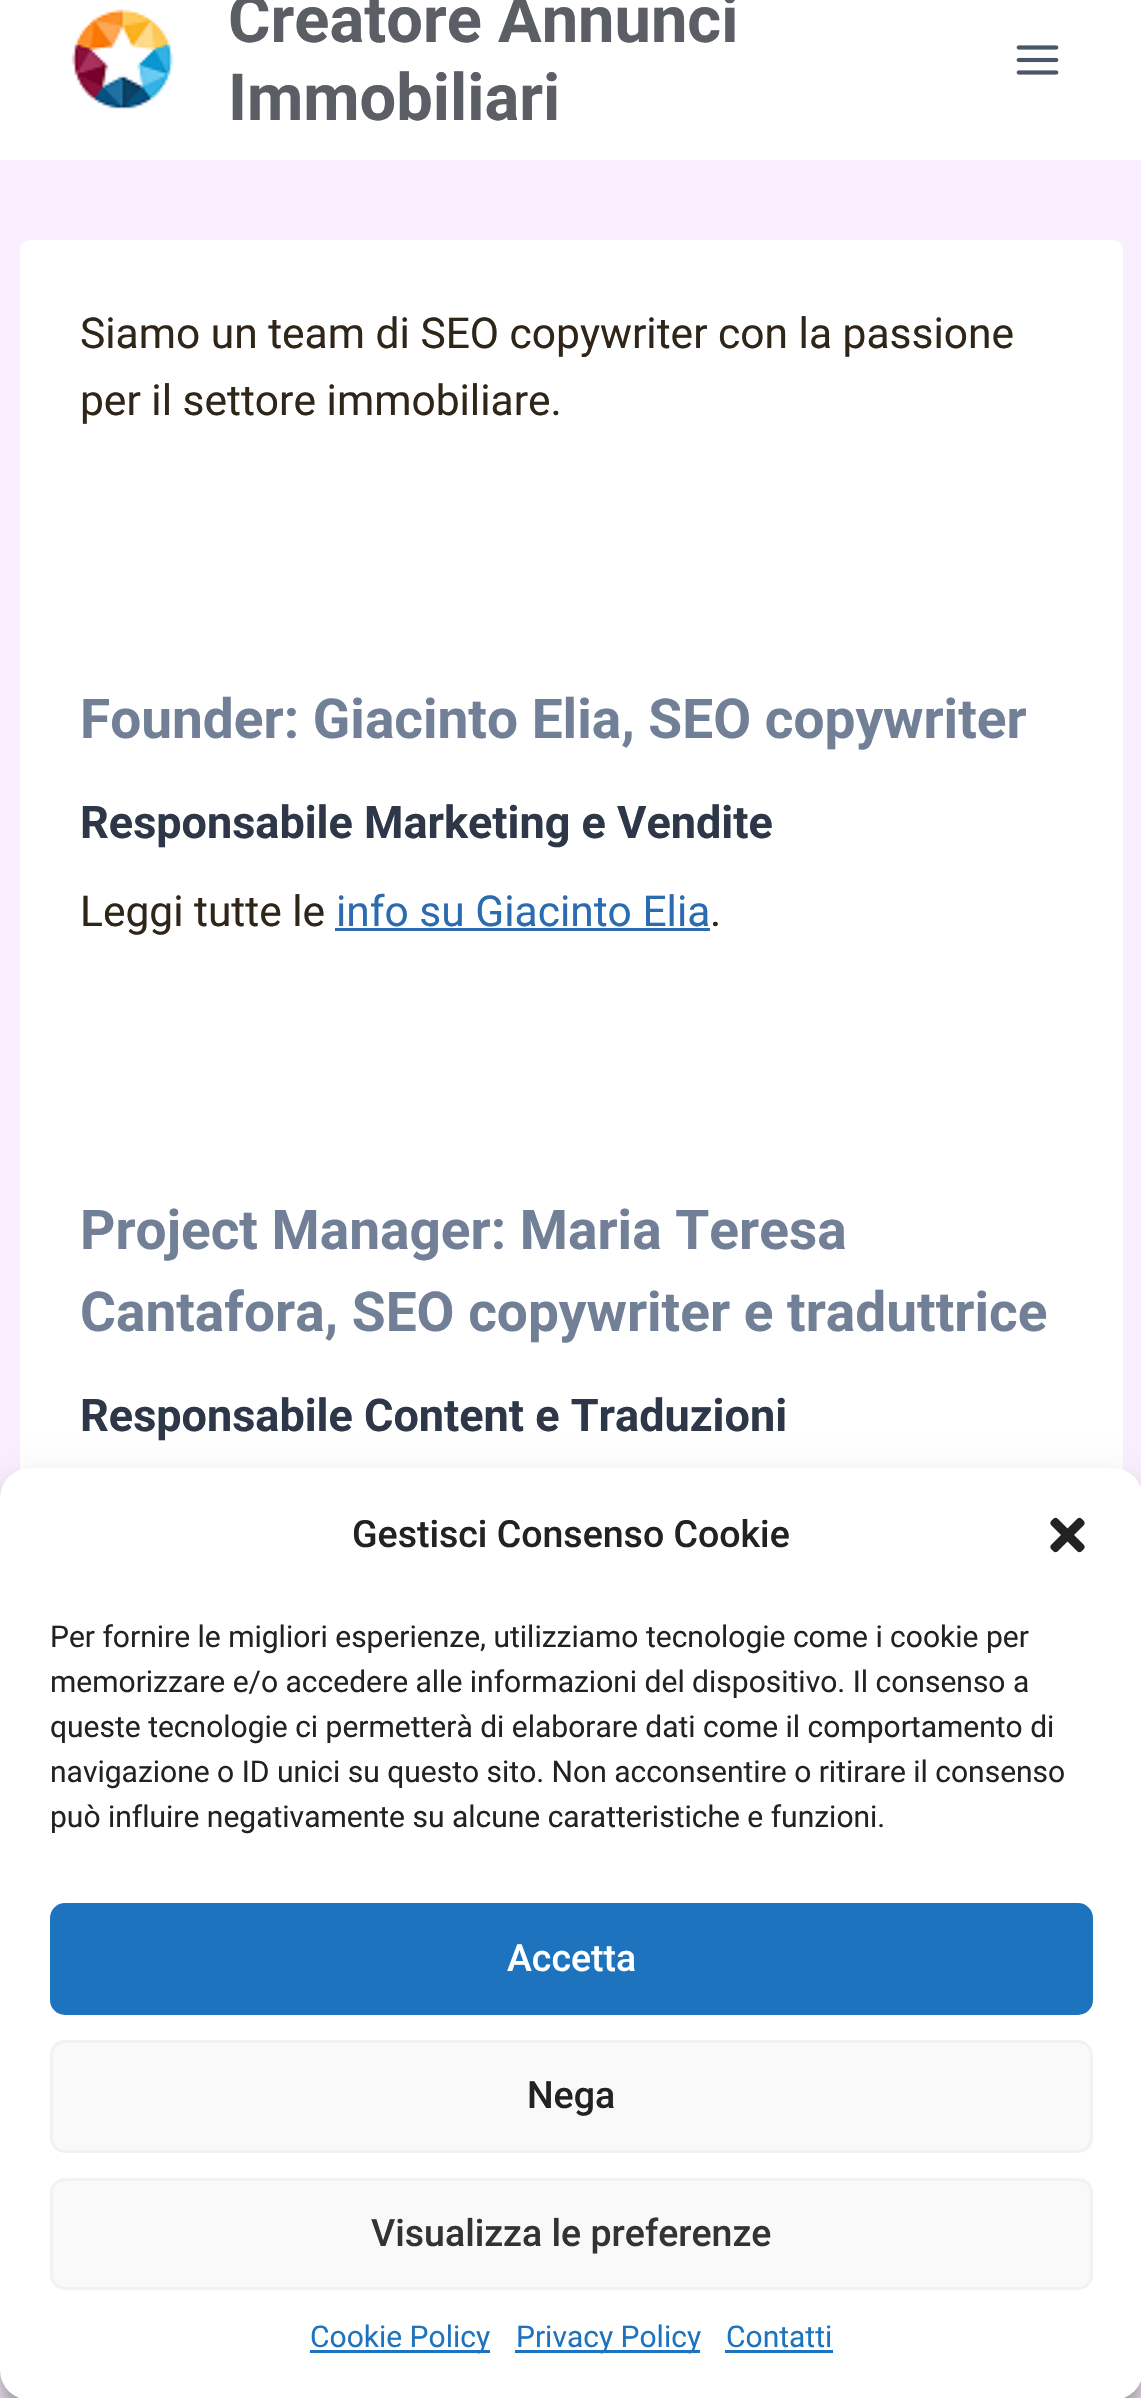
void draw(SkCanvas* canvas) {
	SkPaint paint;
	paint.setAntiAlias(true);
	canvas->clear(0xfff9efff);
	paint.setColor(0xffffffff);
	canvas->drawRect(SkRect::MakeXYWH(0, 0, 1141, 160), paint);
	canvas->drawImageRect(SkImages::DeferredFromEncodedData(SkData::MakeFromFileName("img1.png")), SkRect::MakeXYWH(71, 9, 103, 100), SkSamplingOptions());
	SkFont f1(fontMgr->matchFamilyStyle("Roboto", SkFontStyle::Bold()), 65);
	f1.setSubpixel(true);
	paint.setColor(0xff5b5e65);
	canvas->drawString("Creatore Annunci", 228, 42, f1, paint);
	canvas->drawString("Immobiliari", 228, 120, f1, paint);
	canvas->drawImageRect(SkImages::DeferredFromEncodedData(SkData::MakeFromFileName("img2.png")), SkRect::MakeXYWH(1016, 45, 43, 30), SkSamplingOptions());
	paint.setColor(0xffffffff);
	canvas->drawRoundRect(SkRect::MakeXYWH(20, 240, 1103, 1360), 10, 10, paint);
	SkFont f2(fontMgr->matchFamilyStyle("Roboto", SkFontStyle::Normal()), 42.5);
	f2.setSubpixel(true);
	paint.setColor(0xff2f2519);
	canvas->drawString("Siamo un team di SEO copywriter con la passione", 80, 348, f2, paint);
	canvas->drawString("per il settore immobiliare.", 80, 415, f2, paint);
	SkFont f3(fontMgr->matchFamilyStyle("Roboto", SkFontStyle::Bold()), 55);
	f3.setSubpixel(true);
	paint.setColor(0xff718096);
	canvas->drawString("Founder: Giacinto Elia, SEO copywriter", 80, 738, f3, paint);
	SkFont f4(fontMgr->matchFamilyStyle("Roboto", SkFontStyle::Bold()), 45);
	f4.setSubpixel(true);
	paint.setColor(0xff2d3748);
	canvas->drawString("Responsabile Marketing e Vendite", 80, 838, f4, paint);
	paint.setColor(0xff2f2519);
	canvas->drawString("Leggi tutte le", 80, 926, f2, paint);
	paint.setColor(0xff2b6cb0);
	canvas->drawString("info su Giacinto Elia", 336, 926, f2, paint);
	canvas->drawRect(SkRect::MakeXYWH(335, 928, 375, 3), paint);
	paint.setColor(0xff2f2519);
	canvas->drawString(".", 710, 926, f2, paint);
	paint.setColor(0xff718096);
	canvas->drawString("Project Manager: Maria Teresa", 80, 1249, f3, paint);
	canvas->drawString("Cantafora, SEO copywriter e traduttrice", 80, 1331, f3, paint);
	paint.setColor(0xff2d3748);
	canvas->drawString("Responsabile Content e Traduzioni", 80, 1431, f4, paint);
	paint.setColor(0x3b000000);
	paint.setMaskFilter(SkMaskFilter::MakeBlur(kNormal_SkBlurStyle, 7.5));
	canvas->drawRoundRect(SkRect::MakeXYWH(0, 1483, 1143, 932), 30, 30, paint);
	paint.setMaskFilter(nullptr);
	paint.setColor(0x30000000);
	paint.setMaskFilter(SkMaskFilter::MakeBlur(kNormal_SkBlurStyle, 25));
	canvas->drawRoundRect(SkRect::MakeXYWH(0, 1493, 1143, 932), 30, 30, paint);
	paint.setMaskFilter(nullptr);
	paint.setColor(0xffffffff);
	canvas->drawRoundRect(SkRect::MakeXYWH(0, 1468, 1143, 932), 30, 30, paint);
	SkFont f5(fontMgr->matchFamilyStyle("Roboto", SkFontStyle(500, SkFontStyle::kNormal_Width, SkFontStyle::kUpright_Slant)), 37.5);
	f5.setSubpixel(true);
	paint.setColor(0xff222222);
	canvas->drawString("Gestisci Consenso Cookie", 352, 1547, f5, paint);
	canvas->drawImageRect(SkImages::DeferredFromEncodedData(SkData::MakeFromFileName("img3.png")), SkRect::MakeXYWH(1050, 1517, 35, 36), SkSamplingOptions());
	SkFont f6(fontMgr->matchFamilyStyle("Roboto", SkFontStyle::Normal()), 30);
	f6.setSubpixel(true);
	canvas->drawString("Per fornire le migliori esperienze, utilizziamo tecnologie come i cookie per", 50, 1647, f6, paint);
	canvas->drawString("memorizzare e/o accedere alle informazioni del dispositivo. Il consenso a", 50, 1692, f6, paint);
	canvas->drawString("queste tecnologie ci permetterà di elaborare dati come il comportamento di", 50, 1737, f6, paint);
	canvas->drawString("navigazione o ID unici su questo sito. Non acconsentire o ritirare il consenso", 50, 1782, f6, paint);
	canvas->drawString("può influire negativamente su alcune caratteristiche e funzioni.", 50, 1827, f6, paint);
	paint.setColor(0xff1e73be);
	canvas->drawRoundRect(SkRect::MakeXYWH(51.5, 1904.5, 1040, 109), 13.5, 13.5, paint);
	paint.setStroke(true);
	paint.setStrokeWidth(3);
	canvas->drawRoundRect(SkRect::MakeXYWH(51.5, 1904.5, 1040, 109), 13.5, 13.5, paint);
	paint.setStroke(false);
	paint.setColor(0xffffffff);
	canvas->drawString("Accetta", 507, 1971, f5, paint);
	paint.setColor(0xfff9f9f9);
	canvas->drawRoundRect(SkRect::MakeXYWH(51.5, 2041.5, 1040, 110), 13.5, 13.5, paint);
	paint.setStroke(true);
	paint.setColor(0xfff2f2f2);
	canvas->drawRoundRect(SkRect::MakeXYWH(51.5, 2041.5, 1040, 110), 13.5, 13.5, paint);
	paint.setStroke(false);
	paint.setColor(0xff222222);
	canvas->drawString("Nega", 527, 2108, f5, paint);
	paint.setColor(0xfff9f9f9);
	canvas->drawRoundRect(SkRect::MakeXYWH(51.5, 2179.5, 1040, 109), 13.5, 13.5, paint);
	paint.setStroke(true);
	paint.setColor(0xfff2f2f2);
	canvas->drawRoundRect(SkRect::MakeXYWH(51.5, 2179.5, 1040, 109), 13.5, 13.5, paint);
	paint.setStroke(false);
	paint.setColor(0xff333333);
	canvas->drawString("Visualizza le preferenze", 371, 2246, f5, paint);
	paint.setColor(0xff1e73be);
	canvas->drawRect(SkRect::MakeXYWH(310, 2350, 180, 3), paint);
	canvas->drawString("Cookie Policy", 310, 2347, f6, paint);
	canvas->drawRect(SkRect::MakeXYWH(515, 2350, 185, 3), paint);
	canvas->drawString("Privacy Policy", 516, 2347, f6, paint);
	canvas->drawString("Contatti", 726, 2347, f6, paint);
	canvas->drawRect(SkRect::MakeXYWH(725, 2350, 108, 3), paint);
}
